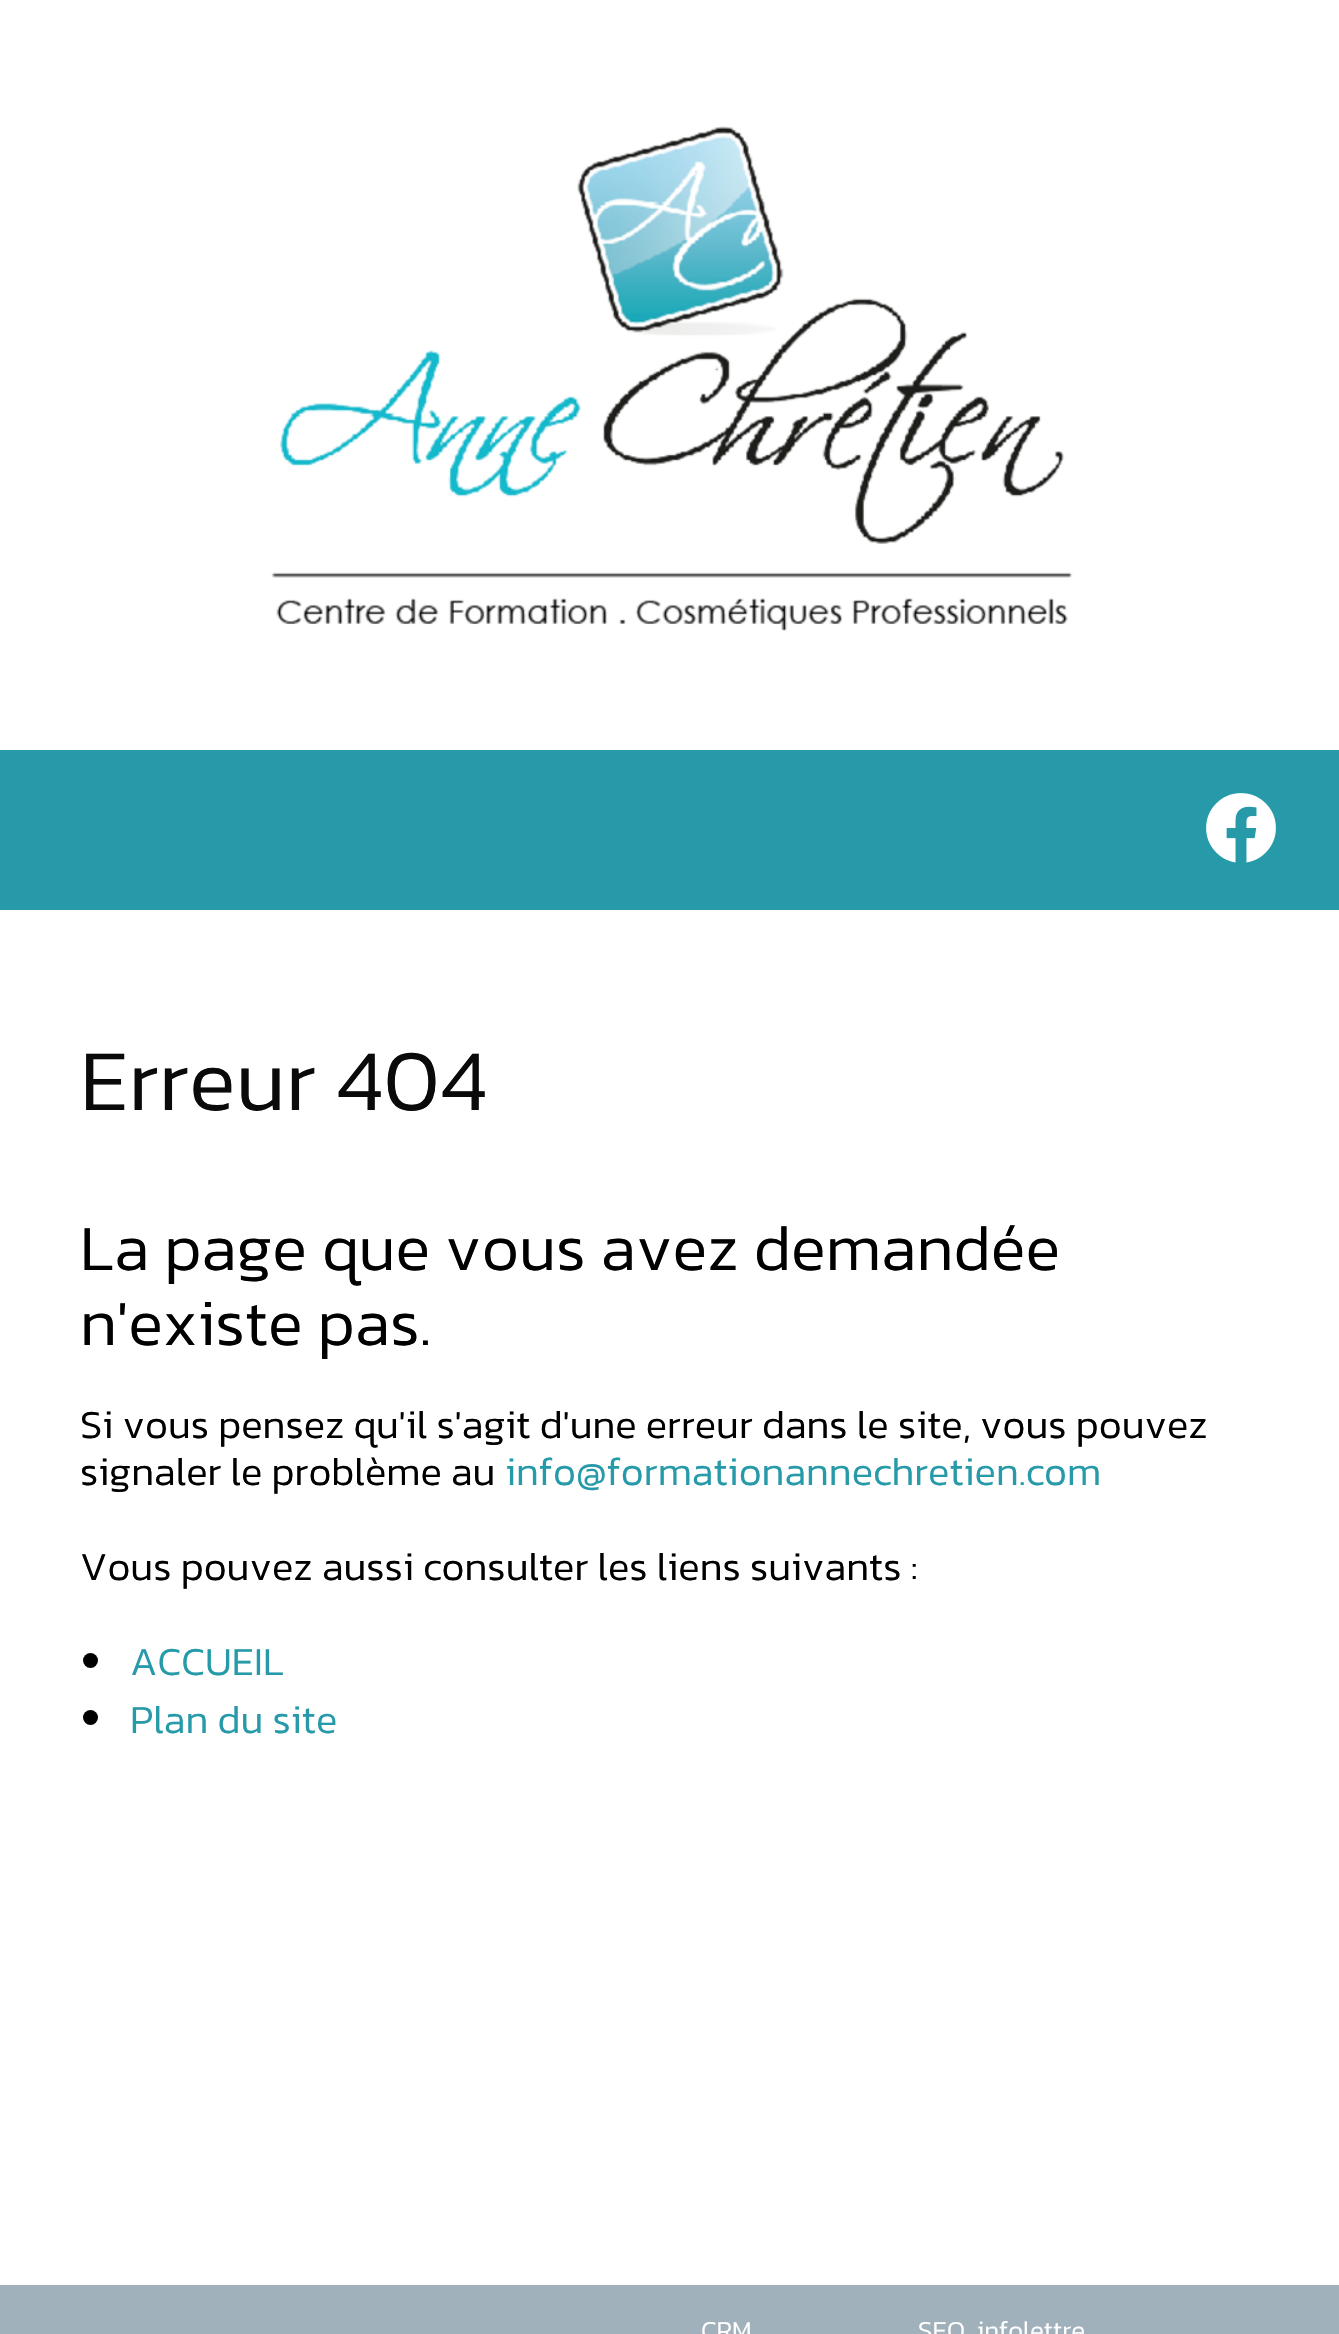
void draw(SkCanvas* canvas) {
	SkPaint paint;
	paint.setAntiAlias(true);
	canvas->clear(0xffffffff);
	canvas->drawImageRect(SkImages::DeferredFromEncodedData(SkData::MakeFromFileName("img1.png")), SkRect::MakeXYWH(271, 126, 802, 505), SkSamplingOptions());
	paint.setColor(0xff269aa9);
	canvas->drawRect(SkRect::MakeXYWH(0, 750, 1339, 160), paint);
	canvas->drawImageRect(SkImages::DeferredFromEncodedData(SkData::MakeFromFileName("img2.png")), SkRect::MakeXYWH(1206, 793, 70, 70), SkSamplingOptions());
	SkFont f1(fontMgr->matchFamilyStyle("Kanit", SkFontStyle(300, SkFontStyle::kNormal_Width, SkFontStyle::kUpright_Slant)), 87.5);
	f1.setSubpixel(true);
	paint.setColor(0xff0a0a0a);
	canvas->drawString("Erreur 404", 80, 1110, f1, paint);
	SkFont f2(fontMgr->matchFamilyStyle("Kanit", SkFontStyle(300, SkFontStyle::kNormal_Width, SkFontStyle::kUpright_Slant)), 65);
	f2.setSubpixel(true);
	paint.setColor(0xff000000);
	canvas->drawString("La page que vous avez demandée", 80, 1270, f2, paint);
	canvas->drawString("n'existe pas.", 80, 1345, f2, paint);
	SkFont f3(fontMgr->matchFamilyStyle("Kanit", SkFontStyle(300, SkFontStyle::kNormal_Width, SkFontStyle::kUpright_Slant)), 40);
	f3.setSubpixel(true);
	canvas->drawString("Si vous pensez qu'il s'agit d'une erreur dans le site, vous pouvez", 80, 1438, f3, paint);
	canvas->drawString("signaler le problème au", 80, 1485, f3, paint);
	paint.setColor(0xff269aa9);
	canvas->drawString("info@formationannechretien.com", 505, 1485, f3, paint);
	paint.setColor(0xff000000);
	canvas->drawString("Vous pouvez aussi consulter les liens suivants :", 80, 1580, f3, paint);
	canvas->drawCircle(90.5, 1660.5, 7.5, paint);
	paint.setColor(0xff269aa9);
	canvas->drawString("ACCUEIL", 130, 1675, f3, paint);
	paint.setColor(0xff000000);
	canvas->drawCircle(90.5, 1717.5, 7.5, paint);
	paint.setColor(0xff269aa9);
	canvas->drawString("Plan du site", 130, 1733, f3, paint);
	paint.setColor(0xffa1b1bc);
	canvas->drawRect(SkRect::MakeXYWH(0, 2285, 1339, 49), paint);
	SkFont f4(fontMgr->matchFamilyStyle("Kanit", SkFontStyle(300, SkFontStyle::kNormal_Width, SkFontStyle::kUpright_Slant)), 26);
	f4.setSubpixel(true);
	paint.setColor(0xffffffff);
	canvas->drawString("CRM", 701, 2339, f4, paint);
	canvas->drawString("SEO", 918, 2339, f4, paint);
	canvas->drawString("infolettre", 977, 2339, f4, paint);
}
